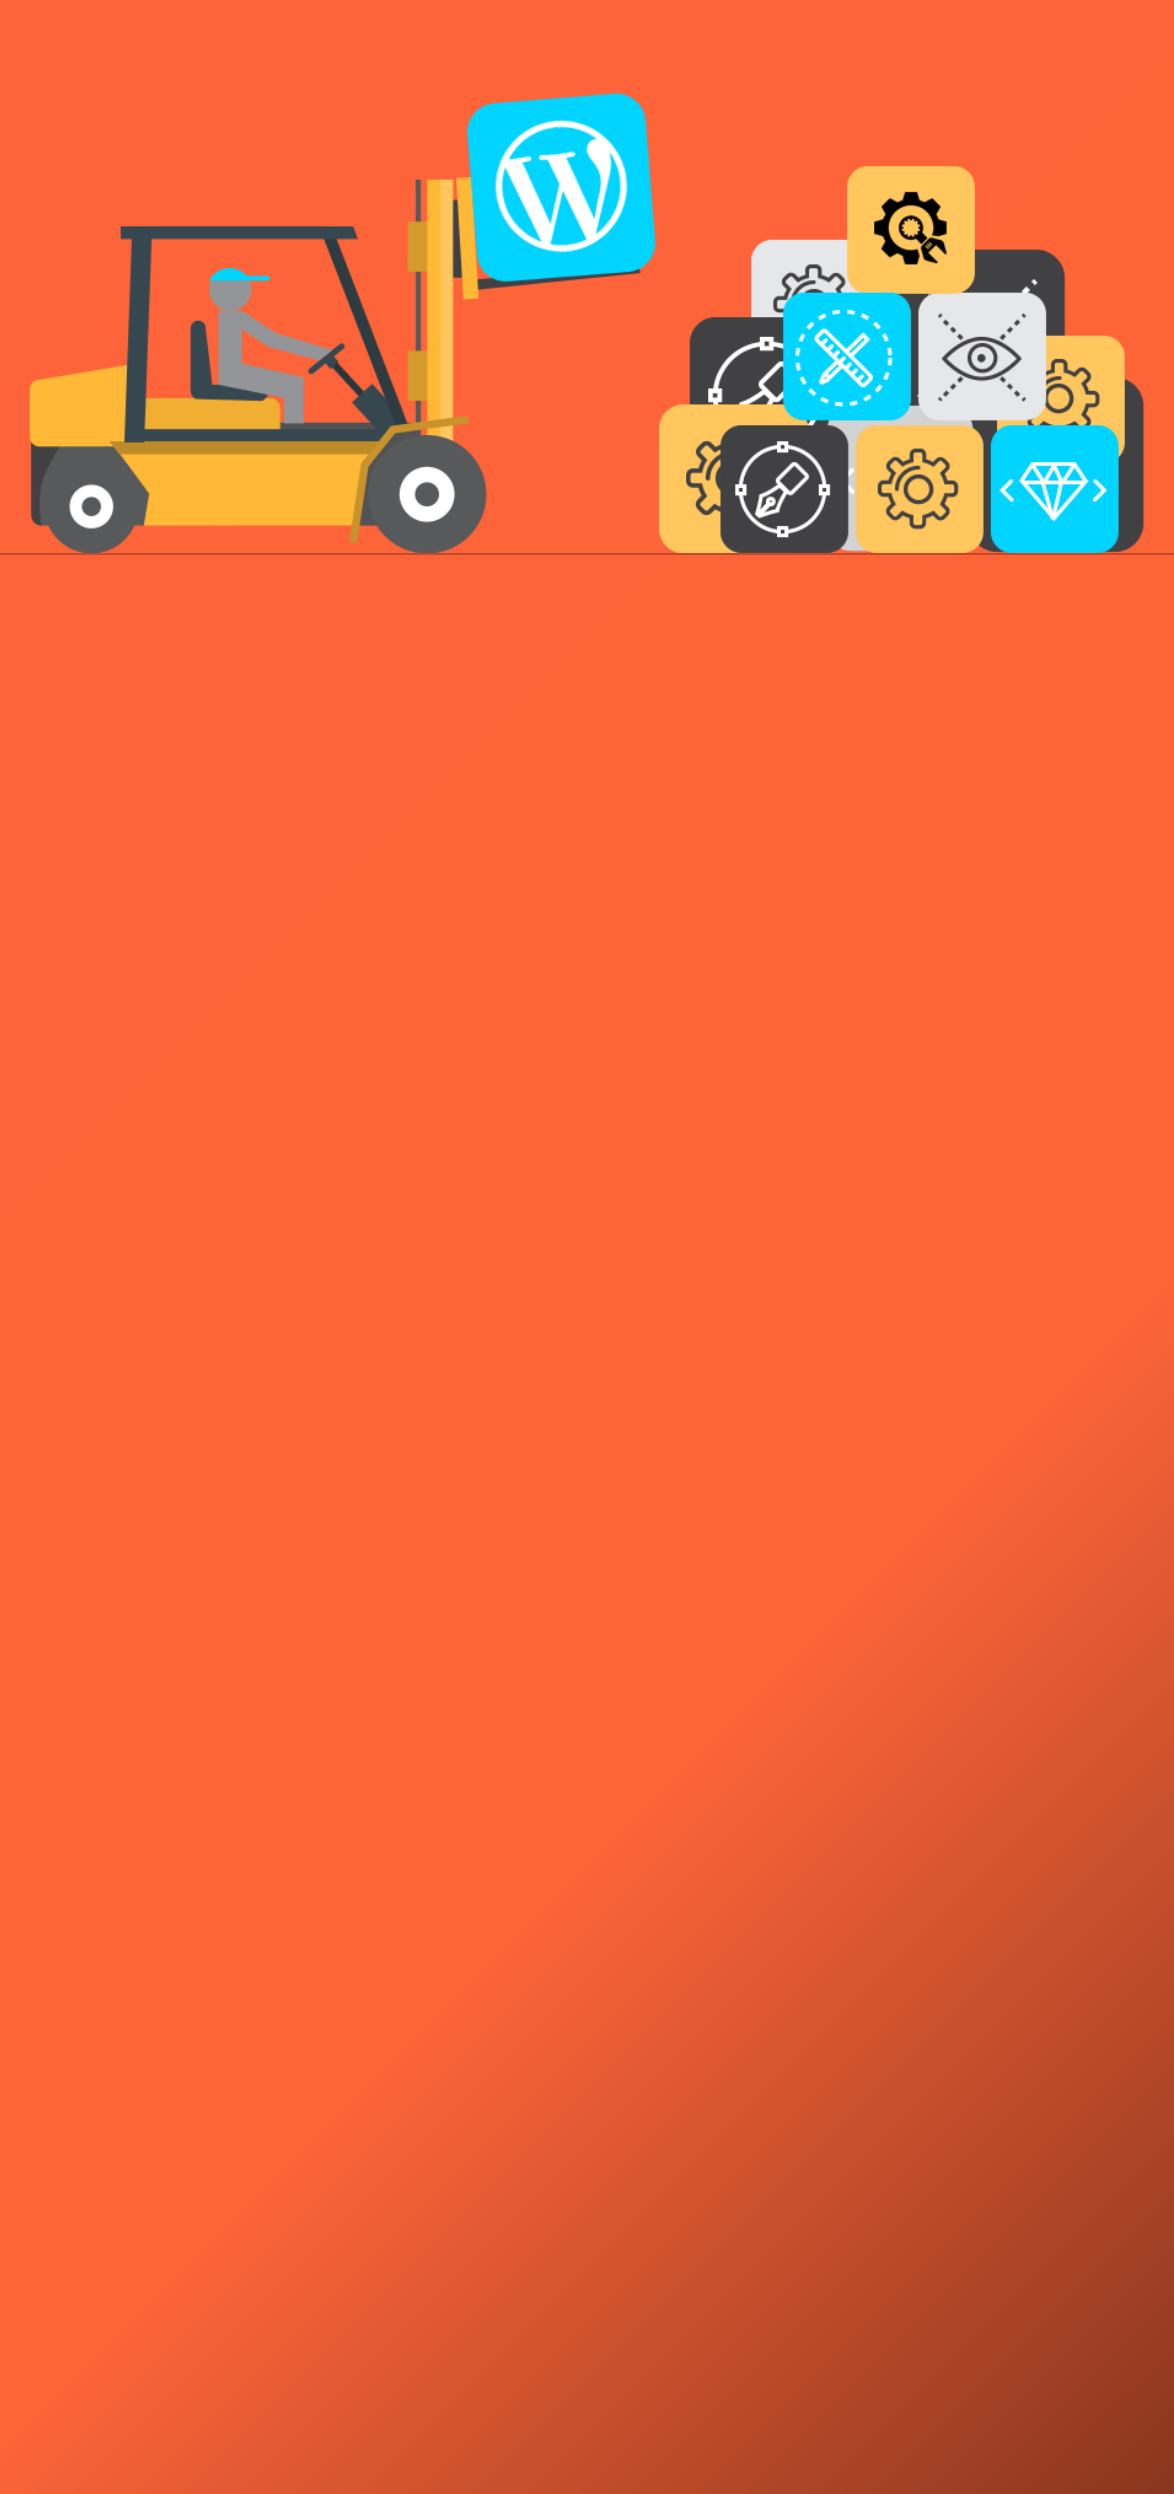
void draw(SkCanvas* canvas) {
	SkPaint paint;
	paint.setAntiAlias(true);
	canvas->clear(0xffffffff);
	{
		const SkColor colors[] = {0xfffd6439, 0xfffd6438, 0xff000000};
		const float stops[] = {0, 0.48, 1};
		const SkPoint ends[] = {{-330, 330}, {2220, 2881}};
		paint.setShader(SkGradientShader::MakeLinear(ends, colors, stops, 3, SkTileMode::kClamp));
		paint.setAlpha(255);
	}
	canvas->drawRect(SkRect::MakeXYWH(0, 0, 1174, 2494), paint);
	paint.setShader(nullptr);
	paint.setColor(0xffc04c2b);
	canvas->drawRect(SkRect::MakeXYWH(0, 553, 1174, 2), paint);
	canvas->drawImageRect(SkImages::DeferredFromEncodedData(SkData::MakeFromFileName("img1.png")), SkRect::MakeXYWH(29, 93, 1116, 460), SkSamplingOptions());
}
